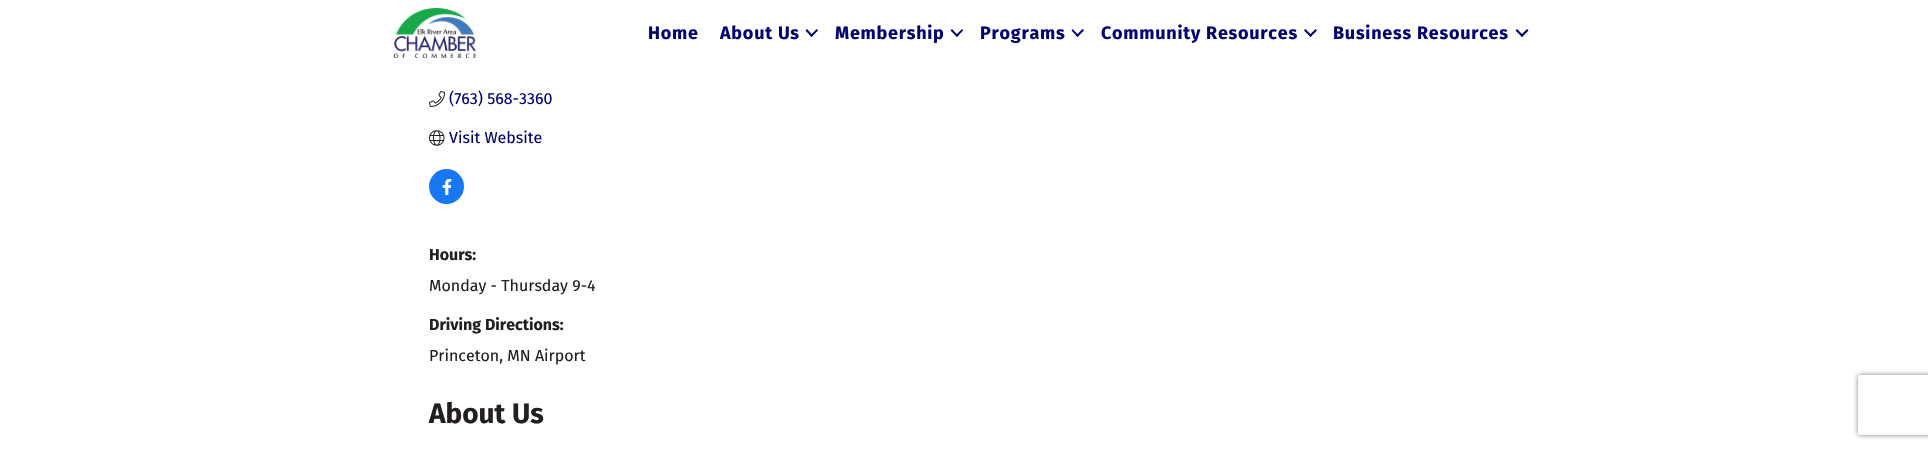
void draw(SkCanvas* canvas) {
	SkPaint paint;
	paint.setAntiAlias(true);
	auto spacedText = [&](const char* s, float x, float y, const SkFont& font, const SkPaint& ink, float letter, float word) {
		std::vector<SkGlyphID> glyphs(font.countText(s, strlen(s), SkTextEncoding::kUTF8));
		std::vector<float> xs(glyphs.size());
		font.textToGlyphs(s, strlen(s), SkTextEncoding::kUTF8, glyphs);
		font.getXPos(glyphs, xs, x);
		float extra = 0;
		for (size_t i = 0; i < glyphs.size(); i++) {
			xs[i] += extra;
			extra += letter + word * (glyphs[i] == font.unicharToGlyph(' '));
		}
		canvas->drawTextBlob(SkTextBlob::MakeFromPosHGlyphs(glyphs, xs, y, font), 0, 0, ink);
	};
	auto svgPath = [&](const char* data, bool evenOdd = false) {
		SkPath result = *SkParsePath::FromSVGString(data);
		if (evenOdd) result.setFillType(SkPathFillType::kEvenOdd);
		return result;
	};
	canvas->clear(0xffffffff);
	canvas->drawImageRect(SkImages::DeferredFromEncodedData(SkData::MakeFromFileName("img1.png")), SkRect::MakeXYWH(394, 8, 82, 50), SkSamplingOptions());
	SkFont f1(fontMgr->matchFamilyStyle("Fira Sans", SkFontStyle::Bold()), 18);
	f1.setSubpixel(true);
	paint.setColor(0xff020370);
	spacedText("Home", 648, 39, f1, paint, 0.75, 0);
	spacedText("About Us", 720, 39, f1, paint, 0.75, 0);
	canvas->drawPath(svgPath("M816.5 29L818 30.5L811.5 37L810.5 35.5Z"), paint);
	canvas->drawPath(svgPath("M807 29L813 35.5L811.5 37L805.5 30.5Z"), paint);
	spacedText("Membership", 835, 39, f1, paint, 0.75, 0);
	canvas->drawPath(svgPath("M962 29L963 30.5L957 37L955.5 35.5Z"), paint);
	canvas->drawPath(svgPath("M952 29L958 35.5L957 37L950.5 30.5Z"), paint);
	spacedText("Programs", 980, 39, f1, paint, 0.75, 0);
	canvas->drawPath(svgPath("M1082.5 29L1084 30.5L1077.5 37L1076 35.5Z"), paint);
	canvas->drawPath(svgPath("M1072.5 29L1079 35.5L1077.5 37L1071.5 30.5Z"), paint);
	spacedText("Community Resources", 1101, 39, f1, paint, 0.75, 0);
	canvas->drawPath(svgPath("M1315.5 29L1317 30.5L1310.5 37L1309 35.5Z"), paint);
	canvas->drawPath(svgPath("M1305.5 29L1312 35.5L1310.5 37L1304 30.5Z"), paint);
	spacedText("Business Resources", 1333, 39, f1, paint, 0.75, 0);
	canvas->drawPath(svgPath("M1527 29L1528.5 30.5L1522 37L1520.5 35.5Z"), paint);
	canvas->drawPath(svgPath("M1517 29L1523.5 35.5L1522 37L1515.5 30.5Z"), paint);
	canvas->drawImageRect(SkImages::DeferredFromEncodedData(SkData::MakeFromFileName("img2.png")), SkRect::MakeXYWH(429, 91, 16, 16), SkSamplingOptions());
	SkFont f2(fontMgr->matchFamilyStyle("Fira Sans", SkFontStyle::Normal()), 16);
	f2.setSubpixel(true);
	canvas->drawString("(763) 568-3360", 449, 104, f2, paint);
	canvas->drawImageRect(SkImages::DeferredFromEncodedData(SkData::MakeFromFileName("img3.png")), SkRect::MakeXYWH(429, 130, 16, 16), SkSamplingOptions());
	canvas->drawString("Visit Website", 449, 143, f2, paint);
	paint.setColor(0xff1877f2);
	canvas->drawCircle(446.5, 186.5, 17.5, paint);
	canvas->drawImageRect(SkImages::DeferredFromEncodedData(SkData::MakeFromFileName("img4.png")), SkRect::MakeXYWH(442, 179, 10, 16), SkSamplingOptions());
	SkFont f3(fontMgr->matchFamilyStyle("Fira Sans", SkFontStyle::Bold()), 16);
	f3.setSubpixel(true);
	paint.setColor(0xff231f20);
	canvas->drawString("Hours:", 429, 260, f3, paint);
	canvas->drawString("Monday - Thursday 9-4", 429, 291, f2, paint);
	canvas->drawString("Driving Directions:", 429, 330, f3, paint);
	canvas->drawString("Princeton, MN Airport", 429, 361, f2, paint);
	SkFont f4(fontMgr->matchFamilyStyle("Fira Sans", SkFontStyle::Bold()), 28);
	f4.setSubpixel(true);
	canvas->drawString("About Us", 429, 423, f4, paint);
	canvas->save();
	canvas->clipPath(svgPath("M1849 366H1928V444H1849ZM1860 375H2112C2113 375 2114 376 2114 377V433C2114 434 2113 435 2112 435H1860C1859 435 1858 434 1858 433V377C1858 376 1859 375 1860 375Z", true), true);
	paint.setColor(0xff808080);
	paint.setMaskFilter(SkMaskFilter::MakeBlur(kNormal_SkBlurStyle, 2.5));
	canvas->drawRoundRect(SkRect::MakeXYWH(1858, 375, 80, 60), 2, 2, paint);
	paint.setMaskFilter(nullptr);
	canvas->restore();
}
